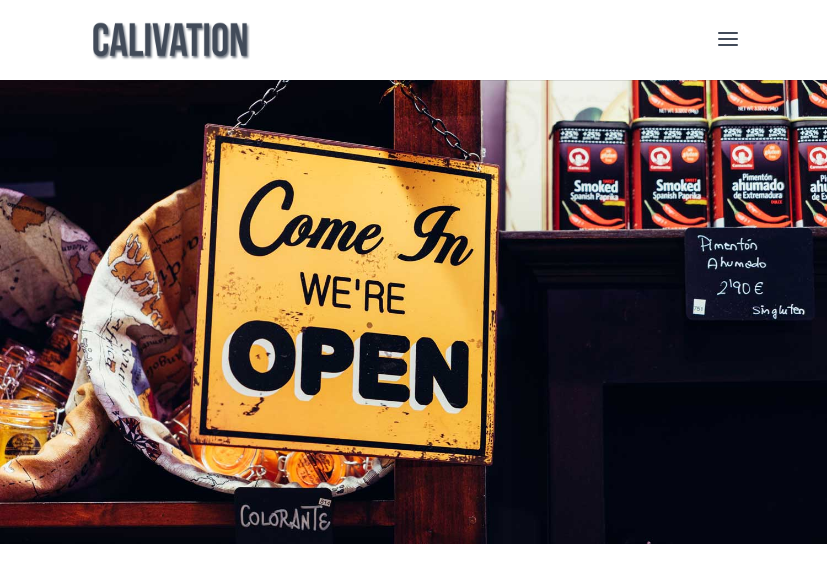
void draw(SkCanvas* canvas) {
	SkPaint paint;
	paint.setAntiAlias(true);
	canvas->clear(0xffffffff);
	canvas->drawImageRect(SkImages::DeferredFromEncodedData(SkData::MakeFromFileName("img3.png")), SkRect::MakeXYWH(0, 80, 827, 464), SkSamplingOptions());
	paint.setColor(0x1a000000);
	canvas->drawRect(SkRect::MakeXYWH(279, 80, 548, 1), paint);
	canvas->drawImageRect(SkImages::DeferredFromEncodedData(SkData::MakeFromFileName("img1.png")), SkRect::MakeXYWH(93, 22, 157, 38), SkSamplingOptions());
	canvas->drawImageRect(SkImages::DeferredFromEncodedData(SkData::MakeFromFileName("img2.png")), SkRect::MakeXYWH(718, 32, 20, 14), SkSamplingOptions());
}
